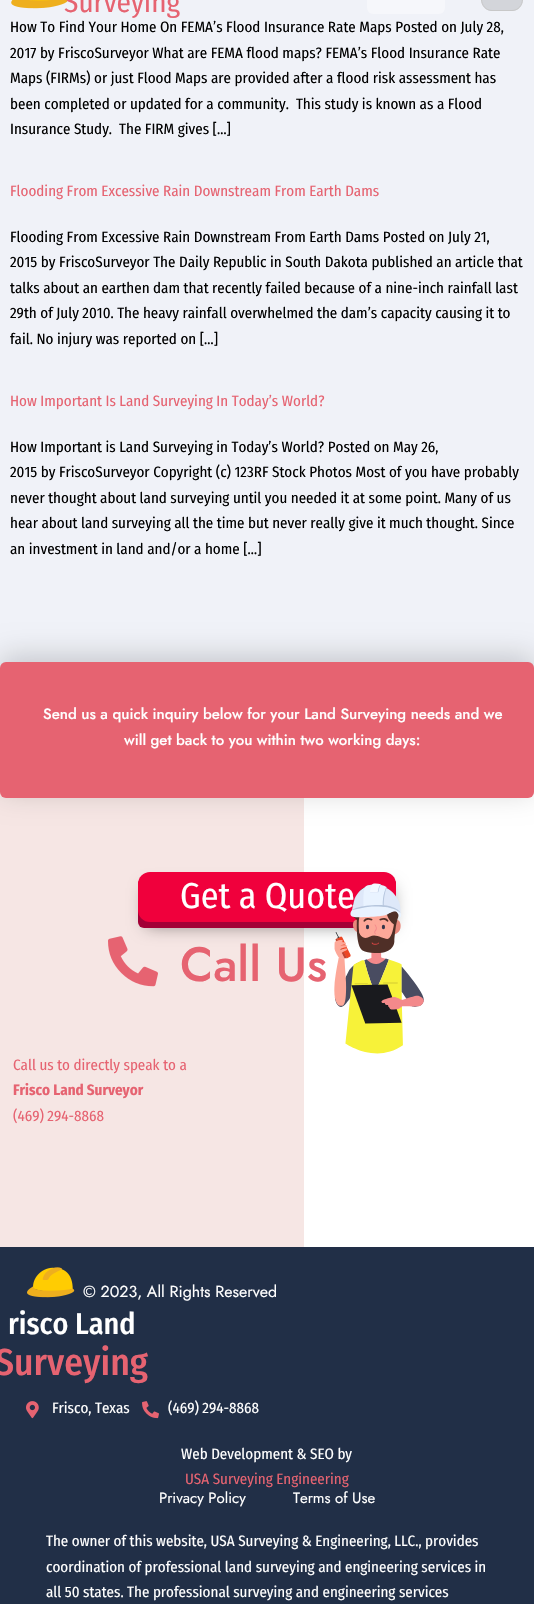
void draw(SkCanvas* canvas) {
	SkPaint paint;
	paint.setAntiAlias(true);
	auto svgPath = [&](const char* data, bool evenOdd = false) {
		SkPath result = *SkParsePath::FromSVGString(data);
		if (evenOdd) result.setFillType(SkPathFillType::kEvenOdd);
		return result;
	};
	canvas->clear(0xfff0f2f8);
	canvas->drawImageRect(SkImages::DeferredFromEncodedData(SkData::MakeFromFileName("img1.png")), SkRect::MakeXYWH(11, 0, 57, 9), SkSamplingOptions());
	SkFont f1(fontMgr->matchFamilyStyle("Fira Sans Condensed", SkFontStyle::Normal()), 29);
	f1.setSubpixel(true);
	paint.setColor(0xffe66371);
	canvas->drawString("Surveying", 64, 12, f1, paint);
	paint.setColor(0xfff6f7fb);
	canvas->drawRoundRect(SkRect::MakeXYWH(367, -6, 78, 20), 6, 6, paint);
	paint.setColor(0xffd3d5da);
	canvas->drawPath(svgPath("M492-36H512C518-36 523-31 523-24V-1C523 6 518 11 512 11H492C486 11 481 6 481-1V-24C481-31 486-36 492-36Z"), paint);
	paint.setStroke(true);
	paint.setStrokeWidth(1);
	paint.setColor(0xffc8c8c8);
	canvas->drawPath(svgPath("M492-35.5H512C518-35.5 522.5-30.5 522.5-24V-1C522.5 5.5 518 10.5 512 10.5H492C486 10.5 481.5 5.5 481.5-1V-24C481.5-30.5 486-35.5 492-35.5Z"), paint);
	SkFont f2(fontMgr->matchFamilyStyle("Fira Sans Condensed", SkFontStyle::Normal()), 15);
	f2.setSubpixel(true);
	paint.setStroke(false);
	paint.setColor(0xff000000);
	canvas->drawString("How To Find Your Home On FEMA’s Flood Insurance Rate Maps Posted on July 28,", 10, 32, f2, paint);
	canvas->drawString("2017 by FriscoSurveyor What are FEMA flood maps? FEMA’s Flood Insurance Rate", 10, 58, f2, paint);
	canvas->drawString("Maps (FIRMs) or just Flood Maps are provided after a flood risk assessment has", 10, 83, f2, paint);
	canvas->drawString("been completed or updated for a community.  This study is known as a Flood", 10, 109, f2, paint);
	canvas->drawString("Insurance Study.  The FIRM gives […]", 10, 134, f2, paint);
	paint.setColor(0xffe66371);
	canvas->drawString("Flooding From Excessive Rain Downstream From Earth Dams", 10, 196, f2, paint);
	paint.setColor(0xff000000);
	canvas->drawString("Flooding From Excessive Rain Downstream From Earth Dams Posted on July 21,", 10, 242, f2, paint);
	canvas->drawString("2015 by FriscoSurveyor The Daily Republic in South Dakota published an article that", 10, 267, f2, paint);
	canvas->drawString("talks about an earthen dam that recently failed because of a nine-inch rainfall last", 10, 293, f2, paint);
	canvas->drawString("29th of July 2010. The heavy rainfall overwhelmed the dam’s capacity causing it to", 10, 318, f2, paint);
	canvas->drawString("fail. No injury was reported on […]", 10, 344, f2, paint);
	paint.setColor(0xffe66371);
	canvas->drawString("How Important Is Land Surveying In Today’s World?", 10, 406, f2, paint);
	paint.setColor(0xff000000);
	canvas->drawString("How Important is Land Surveying in Today’s World? Posted on May 26,", 10, 452, f2, paint);
	canvas->drawString("2015 by FriscoSurveyor Copyright (c) 123RF Stock Photos Most of you have probably", 10, 477, f2, paint);
	canvas->drawString("never thought about land surveying until you needed it at some point. Many of us", 10, 503, f2, paint);
	canvas->drawString("hear about land surveying all the time but never really give it much thought. Since", 10, 528, f2, paint);
	canvas->drawString("an investment in land and/or a home […]", 10, 554, f2, paint);
	paint.setColor(0xffffffff);
	canvas->drawRect(SkRect::MakeXYWH(304, 792, 230, 455), paint);
	paint.setColor(0xfff6e6e4);
	canvas->drawRect(SkRect::MakeXYWH(0, 792, 304, 455), paint);
	paint.setColor(0x2e000000);
	paint.setMaskFilter(SkMaskFilter::MakeBlur(kNormal_SkBlurStyle, 14.5));
	canvas->drawRoundRect(SkRect::MakeXYWH(0, 656, 534, 136), 6, 6, paint);
	paint.setMaskFilter(nullptr);
	paint.setColor(0xffe66371);
	canvas->drawRoundRect(SkRect::MakeXYWH(0, 662, 534, 136), 6, 6, paint);
	SkFont f3(fontMgr->matchFamilyStyle("Jost", SkFontStyle(500, SkFontStyle::kNormal_Width, SkFontStyle::kUpright_Slant)), 15);
	f3.setSubpixel(true);
	paint.setColor(0xffffffff);
	canvas->drawString("Send us a quick inquiry below for your Land Surveying needs and we", 43, 719, f3, paint);
	canvas->drawString("will get back to you within two working days:", 124, 745, f3, paint);
	paint.setColor(0x75000000);
	paint.setMaskFilter(SkMaskFilter::MakeBlur(kNormal_SkBlurStyle, 8.5));
	canvas->drawRect(SkRect::MakeXYWH(146, 888, 246, 38), paint);
	paint.setMaskFilter(nullptr);
	paint.setColor(0xffa30036);
	canvas->drawRoundRect(SkRect::MakeXYWH(138, 878, 258, 50), 6, 6, paint);
	paint.setColor(0xfff0003c);
	canvas->drawRoundRect(SkRect::MakeXYWH(138, 872, 258, 50), 12, 12, paint);
	SkFont f4(fontMgr->matchFamilyStyle("Fira Sans Condensed", SkFontStyle::Normal()), 36);
	f4.setSubpixel(true);
	paint.setColor(0xffffffff);
	canvas->drawString("Get a Quote", 180, 908, f4, paint);
	canvas->drawImageRect(SkImages::DeferredFromEncodedData(SkData::MakeFromFileName("img2.png")), SkRect::MakeXYWH(108, 936, 50, 51), SkSamplingOptions());
	SkFont f5(fontMgr->matchFamilyStyle("Jost", SkFontStyle(500, SkFontStyle::kNormal_Width, SkFontStyle::kUpright_Slant)), 48);
	f5.setSubpixel(true);
	paint.setColor(0xffe66371);
	canvas->drawString("Call Us", 180, 981, f5, paint);
	canvas->drawImageRect(SkImages::DeferredFromEncodedData(SkData::MakeFromFileName("img3.png")), SkRect::MakeXYWH(334, 883, 90, 171), SkSamplingOptions());
	canvas->drawString("Call us to directly speak to a", 13, 1070, f2, paint);
	SkFont f6(fontMgr->matchFamilyStyle("Fira Sans Condensed", SkFontStyle::Bold()), 15);
	f6.setSubpixel(true);
	canvas->drawString("Frisco Land Surveyor", 13, 1095, f6, paint);
	canvas->drawString("(469) 294-8868", 13, 1121, f2, paint);
	paint.setColor(0xff212f47);
	canvas->drawRect(SkRect::MakeXYWH(0, 1247, 534, 357), paint);
	canvas->drawImageRect(SkImages::DeferredFromEncodedData(SkData::MakeFromFileName("img4.png")), SkRect::MakeXYWH(27, 1267, 48, 31), SkSamplingOptions());
	SkFont f7(fontMgr->matchFamilyStyle("Jost", SkFontStyle::Normal()), 16);
	f7.setSubpixel(true);
	paint.setColor(0xffffffff);
	canvas->drawString("© 2023, All Rights Reserved", 83, 1297, f7, paint);
	SkFont f8(fontMgr->matchFamilyStyle("Fira Sans Condensed", SkFontStyle(500, SkFontStyle::kNormal_Width, SkFontStyle::kUpright_Slant)), 30);
	f8.setSubpixel(true);
	canvas->drawString("risco Land", 8, 1334, f8, paint);
	SkFont f9(fontMgr->matchFamilyStyle("Fira Sans Condensed", SkFontStyle(500, SkFontStyle::kNormal_Width, SkFontStyle::kUpright_Slant)), 37.5);
	f9.setSubpixel(true);
	paint.setColor(0xffe66371);
	canvas->drawString("Surveying", -5, 1375, f9, paint);
	canvas->drawImageRect(SkImages::DeferredFromEncodedData(SkData::MakeFromFileName("img5.png")), SkRect::MakeXYWH(26, 1401, 13, 18), SkSamplingOptions());
	paint.setColor(0xffffffff);
	canvas->drawString("Frisco, Texas", 52, 1413, f2, paint);
	canvas->drawImageRect(SkImages::DeferredFromEncodedData(SkData::MakeFromFileName("img6.png")), SkRect::MakeXYWH(142, 1401, 17, 18), SkSamplingOptions());
	canvas->drawString("(469) 294-8868", 168, 1413, f2, paint);
	canvas->drawString("Web Development & SEO by", 181, 1459, f2, paint);
	paint.setColor(0xffe66371);
	canvas->drawString("USA Surveying Engineering", 185, 1484, f2, paint);
	SkFont f10(fontMgr->matchFamilyStyle("Jost", SkFontStyle::Normal()), 15);
	f10.setSubpixel(true);
	paint.setColor(0xffffffff);
	canvas->drawString("Privacy Policy", 159, 1503, f10, paint);
	canvas->drawString("Terms of Use", 293, 1503, f10, paint);
	canvas->drawString("The owner of this website, USA Surveying & Engineering, LLC., provides", 46, 1546, f2, paint);
	canvas->drawString("coordination of professional land surveying and engineering services in", 46, 1572, f2, paint);
	canvas->drawString("all 50 states. The professional surveying and engineering services", 46, 1597, f2, paint);
}
